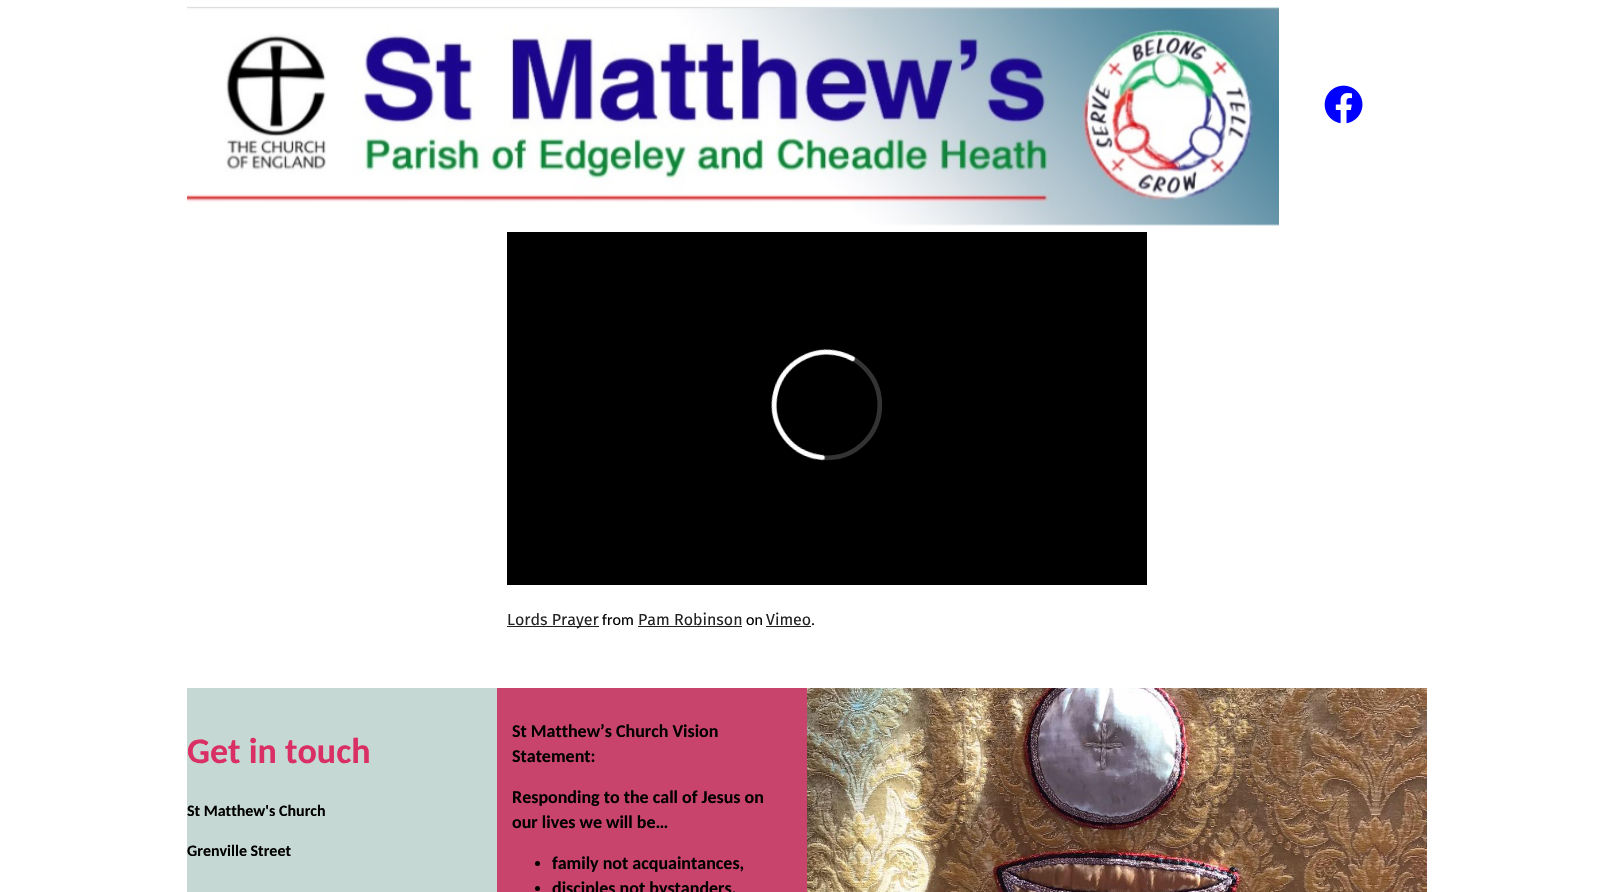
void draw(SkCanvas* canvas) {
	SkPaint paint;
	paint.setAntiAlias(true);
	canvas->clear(0xffffffff);
	canvas->drawImageRect(SkImages::DeferredFromEncodedData(SkData::MakeFromFileName("img1.png")), SkRect::MakeXYWH(187, 6, 1092, 220), SkSamplingOptions());
	canvas->drawImageRect(SkImages::DeferredFromEncodedData(SkData::MakeFromFileName("img2.png")), SkRect::MakeXYWH(1324, 85, 39, 39), SkSamplingOptions());
	canvas->drawImageRect(SkImages::DeferredFromEncodedData(SkData::MakeFromFileName("img3.png")), SkRect::MakeXYWH(507, 232, 640, 353), SkSamplingOptions());
	paint.setColor(0xff222222);
	canvas->drawRect(SkRect::MakeXYWH(507, 626, 92, 1), paint);
	SkFont f1(fontMgr->matchFamilyStyle("Fira Sans", SkFontStyle::Normal()), 16);
	f1.setSubpixel(true);
	canvas->drawString("Lords Prayer", 507, 625, f1, paint);
	SkFont f2(fontMgr->matchFamilyStyle("Carlito", SkFontStyle::Normal()), 16);
	f2.setSubpixel(true);
	paint.setColor(0xff000000);
	canvas->drawString("from", 602, 625, f2, paint);
	paint.setColor(0xff222222);
	canvas->drawString("Pam Robinson", 638, 625, f1, paint);
	canvas->drawRect(SkRect::MakeXYWH(638, 626, 104, 1), paint);
	paint.setColor(0xff000000);
	canvas->drawString("on", 746, 625, f2, paint);
	paint.setColor(0xff222222);
	canvas->drawString("Vimeo", 766, 625, f1, paint);
	canvas->drawRect(SkRect::MakeXYWH(766, 626, 45, 1), paint);
	paint.setColor(0xff000000);
	canvas->drawString(".", 811, 625, f2, paint);
	paint.setColor(0xffc6d8d3);
	canvas->drawRect(SkRect::MakeXYWH(187, 688, 310, 204), paint);
	SkFont f3(fontMgr->matchFamilyStyle("Carlito", SkFontStyle::Bold()), 36);
	f3.setSubpixel(true);
	paint.setColor(0xffda2f64);
	canvas->drawString("Get in touch", 187, 763, f3, paint);
	SkFont f4(fontMgr->matchFamilyStyle("Carlito", SkFontStyle::Bold()), 16);
	f4.setSubpixel(true);
	paint.setColor(0xff000000);
	canvas->drawString("St Matthew's Church", 187, 816, f4, paint);
	canvas->drawString("Grenville Street", 187, 856, f4, paint);
	paint.setColor(0xffc9446d);
	canvas->drawRect(SkRect::MakeXYWH(497, 688, 310, 204), paint);
	SkFont f5(fontMgr->matchFamilyStyle("Carlito", SkFontStyle::Bold()), 18);
	f5.setSubpixel(true);
	paint.setColor(0xff000000);
	canvas->drawString("St Matthew’s Church Vision", 512, 737, f5, paint);
	canvas->drawString("Statement:", 512, 762, f5, paint);
	canvas->drawString("Responding to the call of Jesus on", 512, 803, f5, paint);
	canvas->drawString("our lives we will be…", 512, 828, f5, paint);
	canvas->drawCircle(537.5, 863.5, 2.5, paint);
	canvas->drawString("family not acquaintances,", 552, 869, f5, paint);
	canvas->drawCircle(537.5, 888.5, 2.5, paint);
	canvas->drawString("disciples not bystanders,", 552, 894, f5, paint);
	canvas->drawImageRect(SkImages::DeferredFromEncodedData(SkData::MakeFromFileName("img4.png")), SkRect::MakeXYWH(807, 688, 620, 204), SkSamplingOptions());
}
